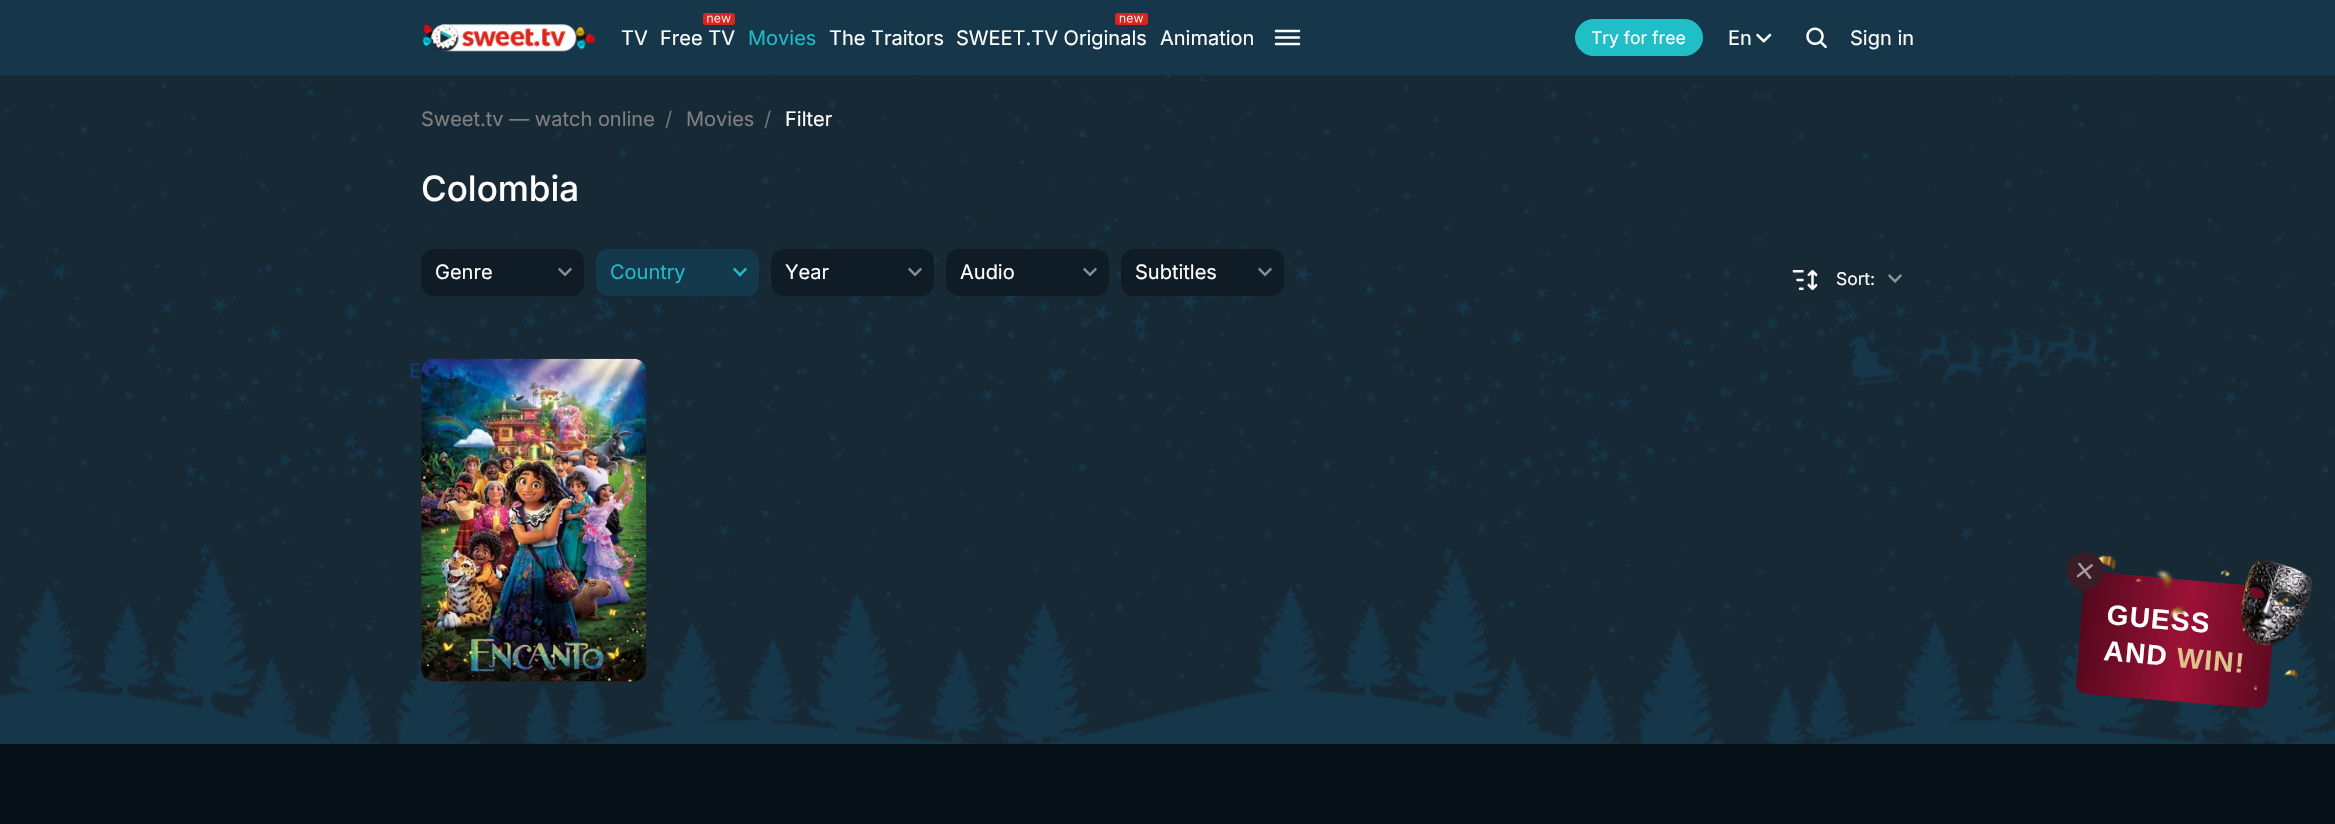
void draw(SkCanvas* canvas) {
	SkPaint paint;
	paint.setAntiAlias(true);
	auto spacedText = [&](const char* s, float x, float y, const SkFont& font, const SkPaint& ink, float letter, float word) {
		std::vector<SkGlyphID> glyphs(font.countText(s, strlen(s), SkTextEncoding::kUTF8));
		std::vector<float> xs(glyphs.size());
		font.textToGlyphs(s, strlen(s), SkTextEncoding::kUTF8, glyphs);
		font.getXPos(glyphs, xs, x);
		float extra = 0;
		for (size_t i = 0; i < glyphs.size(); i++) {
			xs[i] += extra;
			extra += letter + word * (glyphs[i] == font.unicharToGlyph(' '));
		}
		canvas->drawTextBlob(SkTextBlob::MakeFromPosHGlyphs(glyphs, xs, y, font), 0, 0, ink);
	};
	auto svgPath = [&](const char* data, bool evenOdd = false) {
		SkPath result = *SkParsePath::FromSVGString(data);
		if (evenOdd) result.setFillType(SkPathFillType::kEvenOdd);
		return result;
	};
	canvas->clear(0xff182936);
	paint.setColor(0xff153749);
	canvas->drawRect(SkRect::MakeXYWH(0, 0, 2335, 75), paint);
	canvas->drawImageRect(SkImages::DeferredFromEncodedData(SkData::MakeFromFileName("img1.png")), SkRect::MakeXYWH(423, 24, 173, 28), SkSamplingOptions());
	SkFont f1(fontMgr->matchFamilyStyle("Inter", SkFontStyle::Normal()), 20);
	f1.setSubpixel(true);
	paint.setColor(0xffffffff);
	canvas->drawString("TV", 621, 45, f1, paint);
	canvas->drawImageRect(SkImages::DeferredFromEncodedData(SkData::MakeFromFileName("img2.png")), SkRect::MakeXYWH(703, 13, 32, 12), SkSamplingOptions());
	canvas->drawString("Free TV", 660, 45, f1, paint);
	paint.setColor(0xff20bcc6);
	canvas->drawString("Movies", 748, 45, f1, paint);
	paint.setColor(0xffffffff);
	canvas->drawString("The Traitors", 829, 45, f1, paint);
	canvas->drawImageRect(SkImages::DeferredFromEncodedData(SkData::MakeFromFileName("img3.png")), SkRect::MakeXYWH(1115, 13, 33, 12), SkSamplingOptions());
	canvas->drawString("SWEET.TV Originals", 956, 45, f1, paint);
	canvas->drawString("Animation", 1160, 45, f1, paint);
	paint.setStroke(true);
	paint.setStrokeWidth(2.5);
	paint.setStrokeCap(SkPaint::kRound_Cap);
	canvas->drawPath(svgPath("M1276 31H1299M1276 37.5H1299M1276 44H1299"), paint);
	paint.setStroke(false);
	paint.setColor(0xff20bec6);
	canvas->drawRoundRect(SkRect::MakeXYWH(1575.5, 19.5, 127, 36), 18, 18, paint);
	paint.setStroke(true);
	paint.setStrokeWidth(1);
	paint.setStrokeCap(SkPaint::kButt_Cap);
	canvas->drawRoundRect(SkRect::MakeXYWH(1575.5, 19.5, 127, 36), 18, 18, paint);
	SkFont f2(fontMgr->matchFamilyStyle("Inter", SkFontStyle::Normal()), 17.5);
	f2.setSubpixel(true);
	paint.setStroke(false);
	paint.setColor(0xffffffff);
	canvas->drawString("Try for free", 1591, 44, f2, paint);
	canvas->drawString("En", 1728, 45, f1, paint);
	canvas->drawImageRect(SkImages::DeferredFromEncodedData(SkData::MakeFromFileName("img4.png")), SkRect::MakeXYWH(1756, 33, 16, 10), SkSamplingOptions());
	canvas->drawImageRect(SkImages::DeferredFromEncodedData(SkData::MakeFromFileName("img5.png")), SkRect::MakeXYWH(1806, 27, 21, 22), SkSamplingOptions());
	canvas->drawString("Sign in", 1850, 45, f1, paint);
	canvas->drawImageRect(SkImages::DeferredFromEncodedData(SkData::MakeFromFileName("img6.png")), SkRect::MakeXYWH(0, 75, 2335, 669), SkSamplingOptions());
	paint.setColor(0xff808080);
	canvas->drawString("Sweet.tv — watch online", 421, 126, f1, paint);
	paint.setColor(0xff6c757d);
	canvas->drawString("/", 665, 126, f1, paint);
	paint.setColor(0xff808080);
	canvas->drawString("Movies", 686, 126, f1, paint);
	paint.setColor(0xff6c757d);
	canvas->drawString("/", 764, 126, f1, paint);
	paint.setColor(0xffffffff);
	canvas->drawString("Filter", 785, 126, f1, paint);
	SkFont f3(fontMgr->matchFamilyStyle("Inter", SkFontStyle(500, SkFontStyle::kNormal_Width, SkFontStyle::kUpright_Slant)), 35);
	f3.setSubpixel(true);
	canvas->drawString("Colombia", 421, 201, f3, paint);
	paint.setColor(0xff0f1c26);
	canvas->drawRoundRect(SkRect::MakeXYWH(421, 249, 163, 47), 13, 13, paint);
	paint.setColor(0xffffffff);
	canvas->drawString("Genre", 435, 279, f1, paint);
	paint.setColor(0xff878e93);
	canvas->drawPath(svgPath("M572 269.5L565 276.5V273L570.5 267.5ZM565 276.5L558 269.5L559.5 267.5L565 273Z"), paint);
	paint.setColor(0xff15394c);
	canvas->drawRoundRect(SkRect::MakeXYWH(596, 249, 163, 47), 13, 13, paint);
	paint.setColor(0xff20bcc6);
	canvas->drawString("Country", 610, 279, f1, paint);
	canvas->drawPath(svgPath("M747 269.5L740 276.5L738 275L745.5 267.5Z"), paint);
	canvas->drawPath(svgPath("M742 275L740 276.5L733 269.5L734.5 267.5Z"), paint);
	paint.setColor(0xff0f1c26);
	canvas->drawRoundRect(SkRect::MakeXYWH(771, 249, 163, 47), 13, 13, paint);
	paint.setColor(0xffffffff);
	canvas->drawString("Year", 785, 279, f1, paint);
	paint.setColor(0xff878e93);
	canvas->drawPath(svgPath("M922 269.5L915 276.5V273L920.5 267.5ZM915 276.5L908 269.5L909.5 267.5L915 273Z"), paint);
	paint.setColor(0xff0f1c26);
	canvas->drawRoundRect(SkRect::MakeXYWH(946, 249, 163, 47), 13, 13, paint);
	paint.setColor(0xffffffff);
	canvas->drawString("Audio", 960, 279, f1, paint);
	paint.setColor(0xff878e93);
	canvas->drawPath(svgPath("M1097 269.5L1090 276.5V273L1095.5 267.5ZM1090 276.5L1083 269.5L1084.5 267.5L1090 273Z"), paint);
	paint.setColor(0xff0f1c26);
	canvas->drawRoundRect(SkRect::MakeXYWH(1121, 249, 163, 47), 13, 13, paint);
	paint.setColor(0xffffffff);
	canvas->drawString("Subtitles", 1135, 279, f1, paint);
	paint.setColor(0xff878e93);
	canvas->drawPath(svgPath("M1272 269.5L1265 276.5V273L1270.5 267.5ZM1265 276.5L1258 269.5L1259.5 267.5L1265 273Z"), paint);
	canvas->drawImageRect(SkImages::DeferredFromEncodedData(SkData::MakeFromFileName("img7.png")), SkRect::MakeXYWH(1792, 270, 26, 20), SkSamplingOptions());
	paint.setColor(0xffffffff);
	canvas->drawString("Sort:", 1836, 285, f2, paint);
	paint.setColor(0xff8c949b);
	canvas->drawPath(svgPath("M1902 276L1895 283V279.5L1900.5 274ZM1895 283L1888 276L1889.5 274L1895 279.5Z"), paint);
	paint.setColor(0xff103e77);
	canvas->drawString("E", 409, 378, f1, paint);
	{
		const SkColor colors[] = {0xff182f3f, 0xff263d50, 0xff182f3f};
		const float stops[] = {0.23, 0.62, 1};
		const SkPoint ends[] = {{421, 359}, {1006, 359}};
		paint.setShader(SkGradientShader::MakeLinear(ends, colors, stops, 3, SkTileMode::kClamp));
		paint.setAlpha(255);
	}
	canvas->drawRoundRect(SkRect::MakeXYWH(421, 359, 225, 322), 13, 13, paint);
	canvas->drawImageRect(SkImages::DeferredFromEncodedData(SkData::MakeFromFileName("img8.png")), SkRect::MakeXYWH(421, 358, 226, 324), SkSamplingOptions());
	{
		const SkColor colors[] = {0xff53081c, 0xff9c1237, 0xff610a21};
		const float stops[] = {0, 0.54, 0.97};
		const SkPoint ends[] = {{2077, 626}, {2275, 655}};
		paint.setShader(SkGradientShader::MakeLinear(ends, colors, stops, 3, SkTileMode::kClamp));
		paint.setAlpha(255);
	}
	canvas->drawPath(svgPath("M2097 572L2266 587C2272 587 2277 593 2276 599L2268 698C2267 704 2262 709 2256 708L2086 694C2080 693 2075 688 2076 681L2084 582C2085 576 2090 572 2097 572Z"), paint);
	SkFont f4(fontMgr->matchFamilyStyle("Liberation Sans", SkFontStyle::Bold()), 28);
	f4.setSubpixel(true);
	paint.setShader(nullptr);
	paint.setColor(0xffffffff);
	canvas->save();
	canvas->rotate(5, 2106, 624);
	spacedText("GUESS", 2106, 624, f4, paint, 1.25, 0);
	canvas->restore();
	canvas->save();
	canvas->rotate(5, 2103, 660);
	spacedText("AND", 2103, 660, f4, paint, 1.25, 0);
	canvas->restore();
	paint.setColor(0xffdec38c);
	canvas->save();
	canvas->rotate(5, 2176, 667);
	spacedText("WIN!", 2176, 667, f4, paint, 1.25, 0);
	canvas->restore();
	canvas->drawImageRect(SkImages::DeferredFromEncodedData(SkData::MakeFromFileName("img10.png")), SkRect::MakeXYWH(2098, 555, 201, 136), SkSamplingOptions());
	paint.setColor(0xff3a1c24);
	canvas->drawPath(svgPath("M2087 552.5C2097.5 553.5 2105 562.5 2104 572.5C2103 583 2094 590.5 2084 590C2073.5 589 2066 580 2066.5 569.5C2067.5 559 2076.5 551.5 2087 552.5Z"), paint);
	canvas->drawImageRect(SkImages::DeferredFromEncodedData(SkData::MakeFromFileName("img9.png")), SkRect::MakeXYWH(2077, 562, 16, 17), SkSamplingOptions());
	canvas->drawImageRect(SkImages::DeferredFromEncodedData(SkData::MakeFromFileName("img11.png")), SkRect::MakeXYWH(2240, 560, 73, 86), SkSamplingOptions());
	paint.setColor(0xff061017);
	canvas->drawRect(SkRect::MakeXYWH(0, 744, 2335, 80), paint);
}
